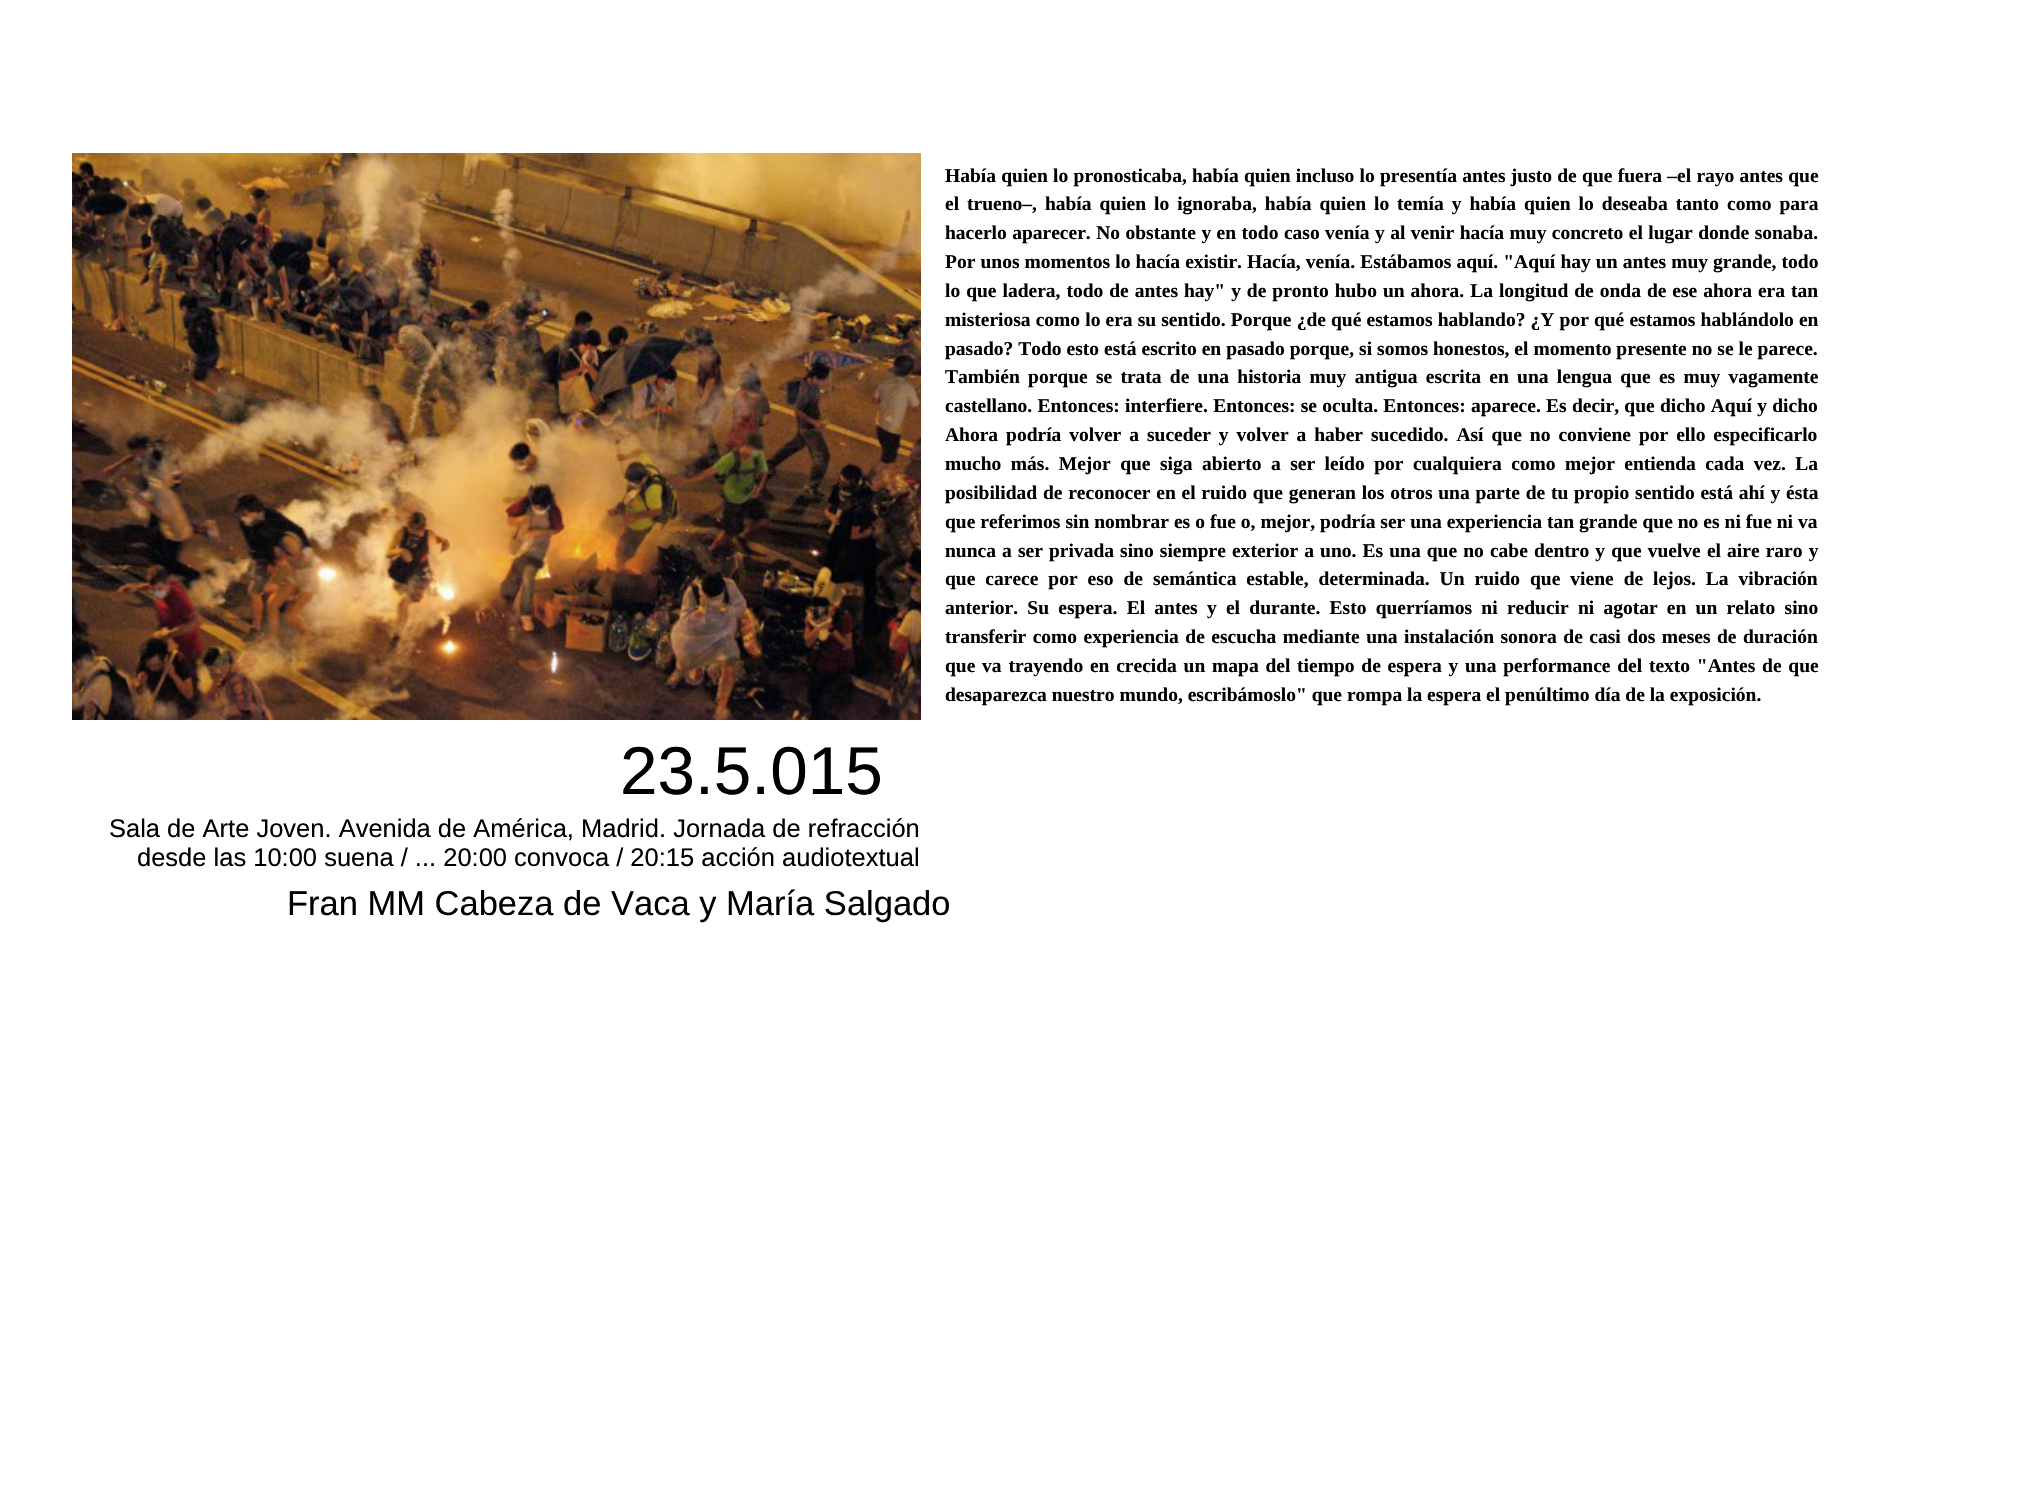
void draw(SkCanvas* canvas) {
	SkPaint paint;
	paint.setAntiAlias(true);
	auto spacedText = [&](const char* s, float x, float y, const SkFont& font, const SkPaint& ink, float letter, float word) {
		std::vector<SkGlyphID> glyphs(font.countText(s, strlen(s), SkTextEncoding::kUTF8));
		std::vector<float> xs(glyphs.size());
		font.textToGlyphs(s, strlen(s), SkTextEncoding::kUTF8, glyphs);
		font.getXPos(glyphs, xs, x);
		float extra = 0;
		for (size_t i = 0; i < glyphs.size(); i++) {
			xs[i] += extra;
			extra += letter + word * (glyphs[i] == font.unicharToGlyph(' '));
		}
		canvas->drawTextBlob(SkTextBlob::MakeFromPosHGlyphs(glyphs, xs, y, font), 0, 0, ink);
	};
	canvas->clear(0xffffffff);
	canvas->drawImageRect(SkImages::DeferredFromEncodedData(SkData::MakeFromFileName("img1.png")), SkRect::MakeXYWH(72, 153, 849, 567), SkSamplingOptions());
	SkFont f1(fontMgr->matchFamilyStyle("Liberation Serif", SkFontStyle::Bold()), 19.5);
	f1.setSubpixel(true);
	paint.setColor(0xff000000);
	spacedText("Había quien lo pronosticaba, había quien incluso lo presentía antes justo de que fuera –el rayo antes que", 945, 182, f1, paint, 0, 0.4);
	spacedText("el trueno–, había quien lo ignoraba, había quien lo temía y había quien lo deseaba tanto como para", 945, 210, f1, paint, 0, 3.1);
	spacedText("hacerlo aparecer. No obstante y en todo caso venía y al venir hacía muy concreto el lugar donde sonaba.", 945, 239, f1, paint, 0, 0.6);
	spacedText("Por unos momentos lo hacía existir. Hacía, venía. Estábamos aquí. \"Aquí hay un antes muy grande, todo", 945, 268, f1, paint, 0, 0.25);
	spacedText("lo que ladera, todo de antes hay\" y de pronto hubo un ahora. La longitud de onda de ese ahora era tan", 945, 297, f1, paint, 0, 1.1);
	spacedText("misteriosa como lo era su sentido. Porque ¿de qué estamos hablando? ¿Y por qué estamos hablándolo en", 945, 326, f1, paint, 0, 0.25);
	spacedText("pasado? Todo esto está escrito en pasado porque, si somos honestos, el momento presente no se le parece.", 945, 355, f1, paint, 0, 0.1);
	spacedText("También porque se trata de una historia muy antigua escrita en una lengua que es muy vagamente", 945, 383, f1, paint, 0, 3.4);
	spacedText("castellano. Entonces: interfiere. Entonces: se oculta. Entonces: aparece. Es decir, que dicho Aquí y dicho", 945, 412, f1, paint, 0, 0.4);
	spacedText("Ahora podría volver a suceder y volver a haber sucedido. Así que no conviene por ello especificarlo", 945, 441, f1, paint, 0, 3.1);
	spacedText("mucho más. Mejor que siga abierto a ser leído por cualquiera como mejor entienda cada vez. La", 945, 470, f1, paint, 0, 4.6);
	spacedText("posibilidad de reconocer en el ruido que generan los otros una parte de tu propio sentido está ahí y ésta", 945, 499, f1, paint, 0, 0.9);
	spacedText("que referimos sin nombrar es o fue o, mejor, podría ser una experiencia tan grande que no es ni fue ni va", 945, 528, f1, paint, 0, 0.1);
	spacedText("nunca a ser privada sino siempre exterior a uno. Es una que no cabe dentro y que vuelve el aire raro y", 945, 557, f1, paint, 0, 1.25);
	spacedText("que carece por eso de semántica estable, determinada. Un ruido que viene de lejos. La vibración", 945, 585, f1, paint, 0, 5.1);
	spacedText("anterior. Su espera. El antes y el durante. Esto querríamos ni reducir ni agotar en un relato sino", 945, 614, f1, paint, 0, 4.4);
	spacedText("transferir como experiencia de escucha mediante una instalación sonora de casi dos meses de duración", 945, 643, f1, paint, 0, 1.6);
	spacedText("que va trayendo en crecida un mapa del tiempo de espera y una performance del texto \"Antes de que", 945, 672, f1, paint, 0, 1.9);
	canvas->drawString("desaparezca nuestro mundo, escribámoslo\" que rompa la espera el penúltimo día de la exposición.", 945, 701, f1, paint);
	SkFont f2(fontMgr->matchFamilyStyle("Liberation Sans", SkFontStyle::Normal()), 67.5);
	f2.setSubpixel(true);
	canvas->drawString("23.5.015", 620, 794, f2, paint);
	SkFont f3(fontMgr->matchFamilyStyle("Liberation Sans", SkFontStyle::Normal()), 25.5);
	f3.setSubpixel(true);
	canvas->drawString("Sala de Arte Joven. Avenida de América, Madrid. Jornada de refracción", 109, 837, f3, paint);
	canvas->drawString("desde las 10:00 suena / ... 20:00 convoca / 20:15 acción audiotextual", 137, 866, f3, paint);
	SkFont f4(fontMgr->matchFamilyStyle("Liberation Sans", SkFontStyle::Normal()), 34.5);
	f4.setSubpixel(true);
	canvas->drawString("Fran MM Cabeza de Vaca y María Salgado", 287, 915, f4, paint);
}
